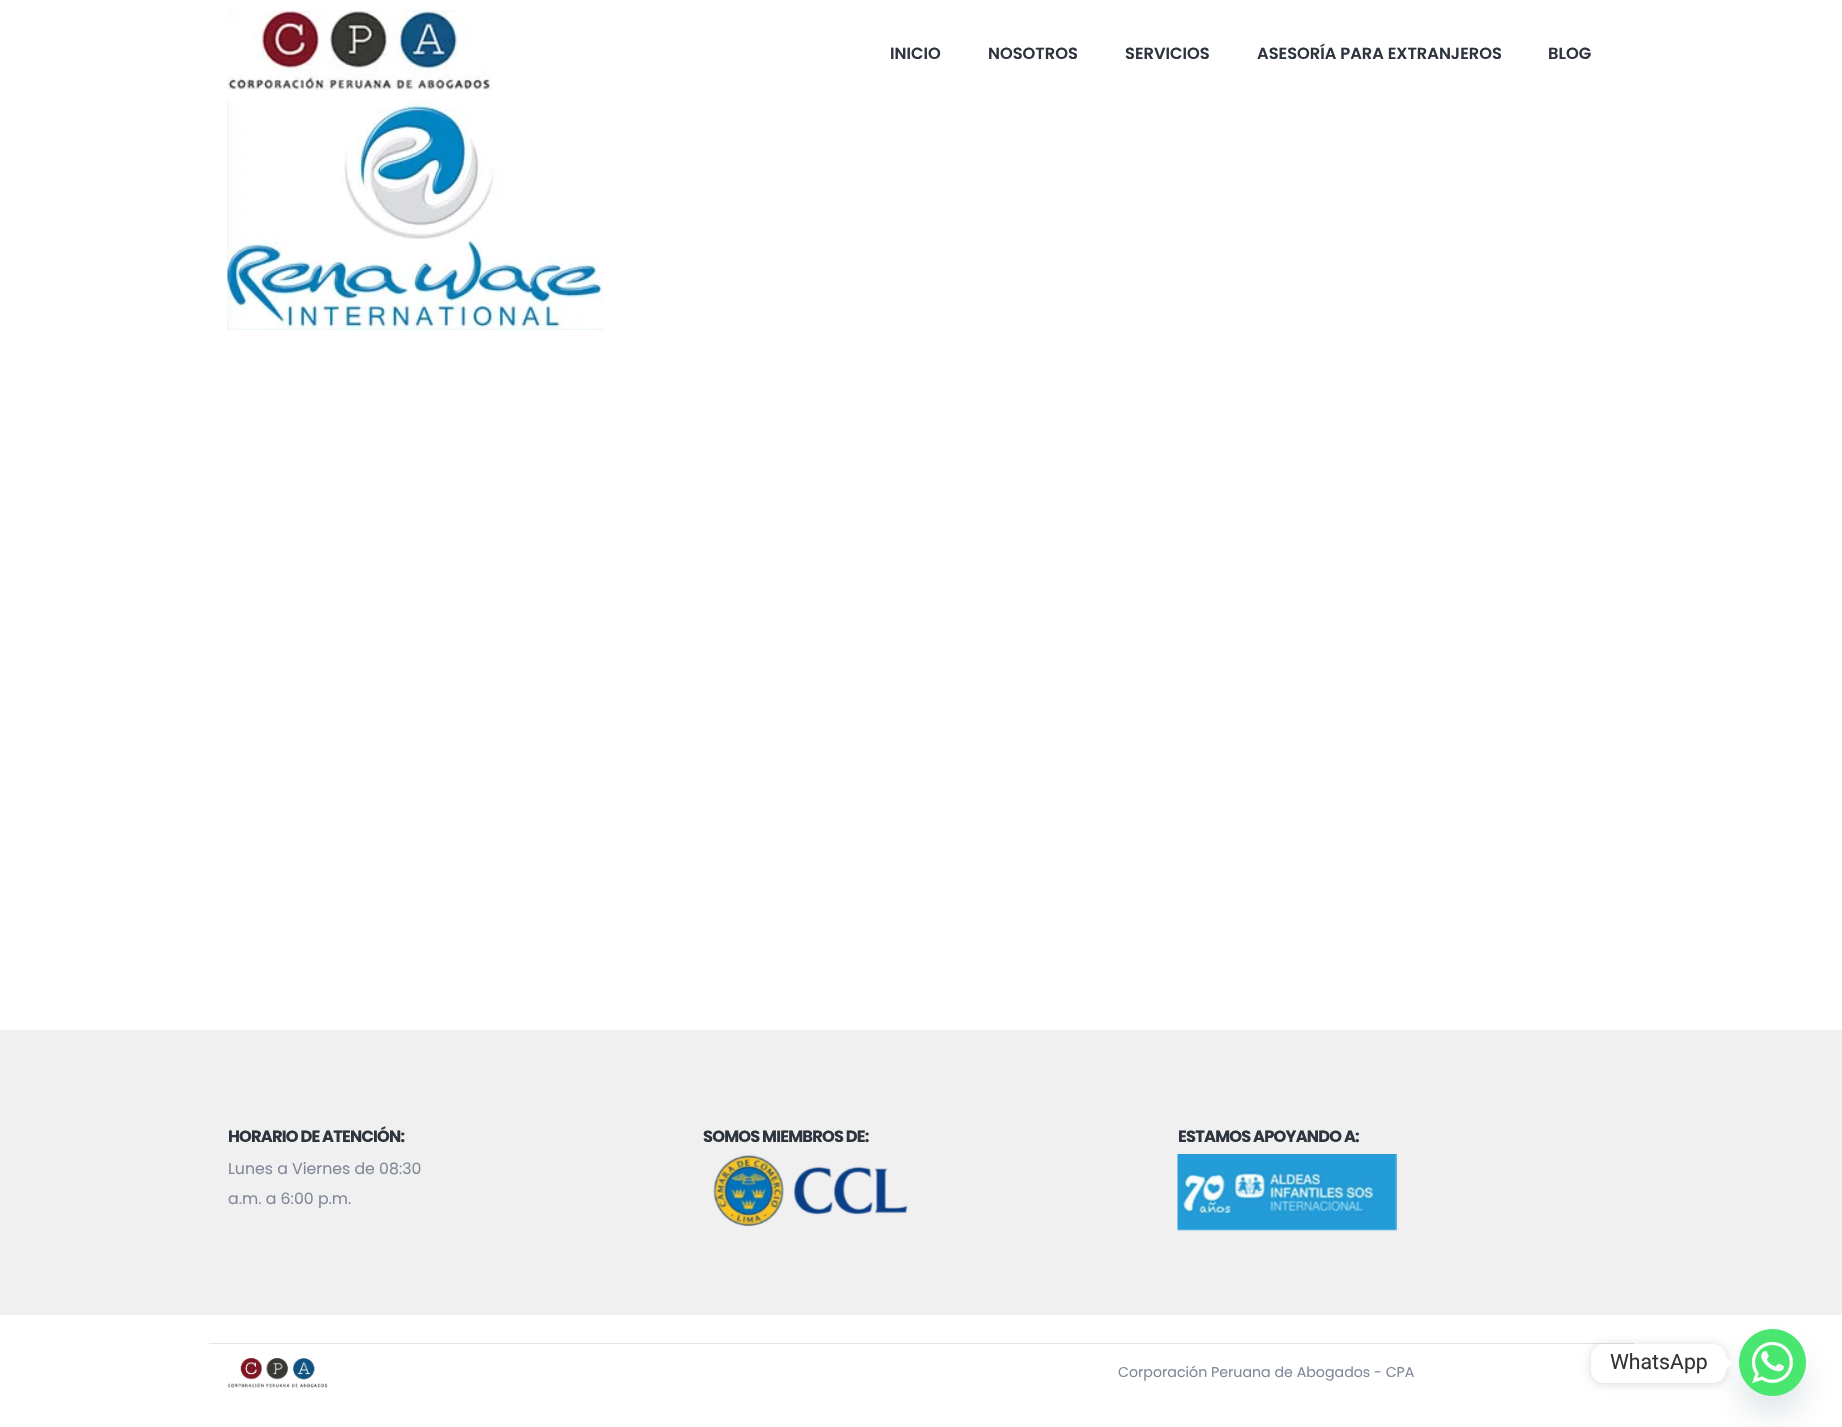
void draw(SkCanvas* canvas) {
	SkPaint paint;
	paint.setAntiAlias(true);
	auto spacedText = [&](const char* s, float x, float y, const SkFont& font, const SkPaint& ink, float letter, float word) {
		std::vector<SkGlyphID> glyphs(font.countText(s, strlen(s), SkTextEncoding::kUTF8));
		std::vector<float> xs(glyphs.size());
		font.textToGlyphs(s, strlen(s), SkTextEncoding::kUTF8, glyphs);
		font.getXPos(glyphs, xs, x);
		float extra = 0;
		for (size_t i = 0; i < glyphs.size(); i++) {
			xs[i] += extra;
			extra += letter + word * (glyphs[i] == font.unicharToGlyph(' '));
		}
		canvas->drawTextBlob(SkTextBlob::MakeFromPosHGlyphs(glyphs, xs, y, font), 0, 0, ink);
	};
	auto svgPath = [&](const char* data, bool evenOdd = false) {
		SkPath result = *SkParsePath::FromSVGString(data);
		if (evenOdd) result.setFillType(SkPathFillType::kEvenOdd);
		return result;
	};
	canvas->clear(0xffffffff);
	canvas->drawImageRect(SkImages::DeferredFromEncodedData(SkData::MakeFromFileName("img1.png")), SkRect::MakeXYWH(227, 10, 265, 80), SkSamplingOptions());
	SkFont f1(fontMgr->matchFamilyStyle("Poppins", SkFontStyle(600, SkFontStyle::kNormal_Width, SkFontStyle::kUpright_Slant)), 16.25);
	f1.setSubpixel(true);
	paint.setColor(0xff2e353e);
	canvas->drawString("INICIO", 890, 59, f1, paint);
	canvas->drawString("NOSOTROS", 988, 59, f1, paint);
	canvas->drawString("SERVICIOS", 1125, 59, f1, paint);
	canvas->drawString("ASESORÍA PARA EXTRANJEROS", 1257, 59, f1, paint);
	canvas->drawString("BLOG", 1548, 59, f1, paint);
	canvas->drawImageRect(SkImages::DeferredFromEncodedData(SkData::MakeFromFileName("img2.png")), SkRect::MakeXYWH(227, 99, 376, 231), SkSamplingOptions());
	paint.setColor(0xfff0f0f0);
	canvas->drawRect(SkRect::MakeXYWH(0, 1030, 1842, 285), paint);
	SkFont f2(fontMgr->matchFamilyStyle("Poppins", SkFontStyle::Bold()), 16.25);
	f2.setSubpixel(true);
	paint.setColor(0xff2e353e);
	spacedText("HORARIO DE ATENCIÓN:", 228, 1142, f2, paint, -0.8, 0);
	SkFont f3(fontMgr->matchFamilyStyle("Poppins", SkFontStyle::Normal()), 15.75);
	f3.setSubpixel(true);
	paint.setColor(0xff818898);
	canvas->drawString("Lunes a Viernes de 08:30", 228, 1174, f3, paint);
	canvas->drawString("a.m. a 6:00 p.m.", 228, 1204, f3, paint);
	paint.setColor(0xff2e353e);
	spacedText("SOMOS MIEMBROS DE:", 703, 1142, f2, paint, -0.8, 0);
	canvas->drawImageRect(SkImages::DeferredFromEncodedData(SkData::MakeFromFileName("img3.png")), SkRect::MakeXYWH(713, 1155, 195, 72), SkSamplingOptions());
	spacedText("ESTAMOS APOYANDO A:", 1178, 1142, f2, paint, -0.8, 0);
	canvas->drawImageRect(SkImages::DeferredFromEncodedData(SkData::MakeFromFileName("img4.png")), SkRect::MakeXYWH(1177, 1154, 220, 77), SkSamplingOptions());
	paint.setColor(0xffe4e4e4);
	canvas->drawRect(SkRect::MakeXYWH(209, 1343, 1425, 1), paint);
	canvas->drawImageRect(SkImages::DeferredFromEncodedData(SkData::MakeFromFileName("img5.png")), SkRect::MakeXYWH(227, 1358, 101, 30), SkSamplingOptions());
	SkFont f4(fontMgr->matchFamilyStyle("Poppins", SkFontStyle::Normal()), 14.2);
	f4.setSubpixel(true);
	paint.setColor(0xff818898);
	canvas->drawString("Corporación Peruana de Abogados - CPA", 1118, 1377, f4, paint);
	paint.setColor(0x2949687e);
	paint.setMaskFilter(SkMaskFilter::MakeBlur(kNormal_SkBlurStyle, 15));
	canvas->drawRoundRect(SkRect::MakeXYWH(1739, 1349, 67, 67), 33.5, 33.5, paint);
	paint.setMaskFilter(nullptr);
	canvas->drawImageRect(SkImages::DeferredFromEncodedData(SkData::MakeFromFileName("img6.png")), SkRect::MakeXYWH(1739, 1329, 67, 67), SkSamplingOptions());
	paint.setColor(0x26000000);
	paint.setMaskFilter(SkMaskFilter::MakeBlur(kNormal_SkBlurStyle, 5));
	canvas->drawRoundRect(SkRect::MakeXYWH(1591, 1345, 135, 39), 13, 13, paint);
	paint.setMaskFilter(nullptr);
	paint.setColor(0xffffffff);
	canvas->drawRoundRect(SkRect::MakeXYWH(1591, 1344, 135, 39), 13, 13, paint);
	SkFont f5(fontMgr->matchFamilyStyle("Roboto", SkFontStyle::Normal()), 21.25);
	f5.setSubpixel(true);
	paint.setColor(0xff333333);
	canvas->drawString("WhatsApp", 1610, 1369, f5, paint);
	paint.setColor(0xffffffff);
	canvas->drawPath(svgPath("M1726 1369.5V1357L1732.5 1363Z"), paint);
}
